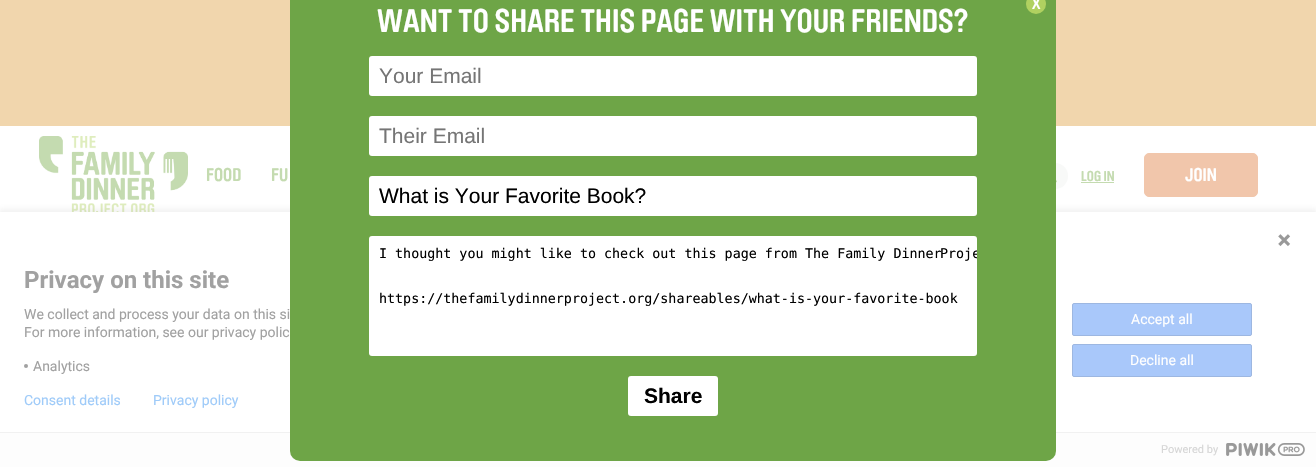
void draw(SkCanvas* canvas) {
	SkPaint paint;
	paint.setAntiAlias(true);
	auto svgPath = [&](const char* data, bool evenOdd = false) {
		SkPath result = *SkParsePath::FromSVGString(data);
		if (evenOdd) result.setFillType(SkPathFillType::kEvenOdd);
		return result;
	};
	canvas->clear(0xffffffff);
	paint.setColor(0xfff1d6ad);
	canvas->drawRect(SkRect::MakeXYWH(0, 0, 1316, 126), paint);
	paint.setColor(0xfff8f9f8);
	canvas->drawRoundRect(SkRect::MakeXYWH(840, 163, 228, 26), 13, 13, paint);
	canvas->drawImageRect(SkImages::DeferredFromEncodedData(SkData::MakeFromFileName("img1.png")), SkRect::MakeXYWH(39, 136, 149, 76), SkSamplingOptions());
	paint.setColor(0x24999999);
	paint.setMaskFilter(SkMaskFilter::MakeBlur(kNormal_SkBlurStyle, 2.5));
	canvas->drawRect(SkRect::MakeXYWH(-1, 209, 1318, 257), paint);
	paint.setMaskFilter(nullptr);
	paint.setColor(0xffffffff);
	canvas->drawRect(SkRect::MakeXYWH(0, 212, 1316, 220), paint);
	paint.setColor(0xfffdfdfd);
	canvas->drawRect(SkRect::MakeXYWH(0, 433, 1316, 34), paint);
	paint.setColor(0xfff1f1f1);
	canvas->drawRect(SkRect::MakeXYWH(0, 432, 1316, 1), paint);
	paint.setColor(0xff6ea547);
	canvas->drawRoundRect(SkRect::MakeXYWH(290, -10, 766, 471), 10, 10, paint);
	paint.setColor(0xffb0d160);
	canvas->drawCircle(1036, 4, 10, paint);
	SkFont f1(fontMgr->matchFamilyStyle("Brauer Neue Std", SkFontStyle::Normal()), 15);
	f1.setSubpixel(true);
	paint.setColor(0xffffffff);
	canvas->drawString("X", 1032, 9, f1, paint);
	SkFont f2(fontMgr->matchFamilyStyle("Brauer Neue Std", SkFontStyle::Normal()), 32);
	f2.setSubpixel(true);
	canvas->drawString("WANT TO SHARE THIS PAGE WITH YOUR FRIENDS?", 377, 32, f2, paint);
	canvas->drawRoundRect(SkRect::MakeXYWH(369, 56, 608, 40), 3, 3, paint);
	SkFont f3(fontMgr->matchFamilyStyle("Liberation Sans", SkFontStyle::Normal()), 21);
	f3.setSubpixel(true);
	paint.setColor(0xff757575);
	canvas->drawString("Your Email", 379, 83, f3, paint);
	paint.setColor(0xffffffff);
	canvas->drawRoundRect(SkRect::MakeXYWH(369, 116, 608, 40), 3, 3, paint);
	paint.setColor(0xff757575);
	canvas->drawString("Their Email", 379, 143, f3, paint);
	paint.setColor(0xffffffff);
	canvas->drawRoundRect(SkRect::MakeXYWH(369, 176, 608, 40), 3, 3, paint);
	paint.setColor(0xff000000);
	canvas->drawString("What is Your Favorite Book?", 379, 203, f3, paint);
	paint.setColor(0xffffffff);
	canvas->drawRoundRect(SkRect::MakeXYWH(369, 236, 608, 120), 3, 3, paint);
	SkFont f4(fontMgr->matchFamilyStyle("DejaVu Sans Mono", SkFontStyle::Normal()), 13.35);
	f4.setSubpixel(true);
	paint.setColor(0xff000000);
	canvas->drawString("I thought you might like to check out this page from The Family Dinner", 379, 258, f4, paint);
	canvas->save();
	canvas->clipPath(svgPath("M372 236H974C975.5 236 977 237.5 977 239V353C977 354.5 975.5 356 974 356H372C370.5 356 369 354.5 369 353V239C369 237.5 370.5 236 372 236Z"), true);
	canvas->drawString("Proje", 940, 258, f4, paint);
	canvas->restore();
	canvas->drawString("https://thefamilydinnerproject.org/shareables/what-is-your-favorite-book", 379, 303, f4, paint);
	paint.setColor(0xffffffff);
	canvas->drawRoundRect(SkRect::MakeXYWH(628, 376, 90, 40), 3, 3, paint);
	SkFont f5(fontMgr->matchFamilyStyle("Liberation Sans", SkFontStyle::Bold()), 21);
	f5.setSubpixel(true);
	paint.setColor(0xff000000);
	canvas->drawString("Share", 644, 403, f5, paint);
	SkFont f6(fontMgr->matchFamilyStyle("Brauer Neue Std", SkFontStyle::Normal()), 18);
	f6.setSubpixel(true);
	paint.setColor(0xffc4dbb0);
	canvas->drawString("FOOD", 206, 181, f6, paint);
	canvas->drawString("FU", 271, 181, f6, paint);
	canvas->drawImageRect(SkImages::DeferredFromEncodedData(SkData::MakeFromFileName("img2.png")), SkRect::MakeXYWH(1056, 180, 1, 3), SkSamplingOptions());
	SkFont f7(fontMgr->matchFamilyStyle("Brauer Neue Std", SkFontStyle::Normal()), 14);
	f7.setSubpixel(true);
	canvas->drawString("LOG IN", 1081, 181, f7, paint);
	canvas->drawRect(SkRect::MakeXYWH(1081, 182, 33, 1), paint);
	paint.setColor(0xfff1c6ab);
	canvas->drawRoundRect(SkRect::MakeXYWH(1144.5, 153.5, 113, 43), 4.5, 4.5, paint);
	paint.setStroke(true);
	paint.setStrokeWidth(1);
	canvas->drawRoundRect(SkRect::MakeXYWH(1144.5, 153.5, 113, 43), 4.5, 4.5, paint);
	paint.setStroke(false);
	paint.setColor(0xffffffff);
	canvas->drawString("JOIN", 1185, 181, f6, paint);
	canvas->drawImageRect(SkImages::DeferredFromEncodedData(SkData::MakeFromFileName("img3.png")), SkRect::MakeXYWH(1278, 234, 13, 13), SkSamplingOptions());
	SkFont f8(fontMgr->matchFamilyStyle("Roboto", SkFontStyle::Bold()), 24);
	f8.setSubpixel(true);
	paint.setColor(0xffa1a1a1);
	canvas->drawString("Privacy on this site", 24, 288, f8, paint);
	SkFont f9(fontMgr->matchFamilyStyle("Roboto", SkFontStyle::Normal()), 14);
	f9.setSubpixel(true);
	canvas->drawString("We collect and process your data on this si", 24, 319, f9, paint);
	canvas->drawString("For more information, see our privacy polic", 24, 337, f9, paint);
	canvas->drawCircle(26, 366, 2, paint);
	canvas->drawString("Analytics", 33, 371, f9, paint);
	paint.setColor(0xffa9c8fa);
	canvas->drawRoundRect(SkRect::MakeXYWH(1072.5, 303.5, 179, 32), 1.5, 1.5, paint);
	paint.setStroke(true);
	paint.setColor(0xff9db7e1);
	canvas->drawRoundRect(SkRect::MakeXYWH(1072.5, 303.5, 179, 32), 1.5, 1.5, paint);
	paint.setStroke(false);
	paint.setColor(0xffffffff);
	canvas->drawString("Accept all", 1131, 324, f9, paint);
	paint.setColor(0xffa9c8fa);
	canvas->drawRoundRect(SkRect::MakeXYWH(1072.5, 344.5, 179, 32), 1.5, 1.5, paint);
	paint.setStroke(true);
	paint.setColor(0xff9db7e1);
	canvas->drawRoundRect(SkRect::MakeXYWH(1072.5, 344.5, 179, 32), 1.5, 1.5, paint);
	paint.setStroke(false);
	paint.setColor(0xffffffff);
	canvas->drawString("Decline all", 1130, 365, f9, paint);
	paint.setColor(0xff9fcbf9);
	canvas->drawString("Consent details", 24, 405, f9, paint);
	canvas->drawString("Privacy policy", 153, 405, f9, paint);
	SkFont f10(fontMgr->matchFamilyStyle("Roboto", SkFontStyle::Normal()), 11);
	f10.setSubpixel(true);
	paint.setColor(0xffd6d6d6);
	canvas->drawString("Powered by", 1161, 453, f10, paint);
	canvas->drawImageRect(SkImages::DeferredFromEncodedData(SkData::MakeFromFileName("img4.png")), SkRect::MakeXYWH(1226, 443, 79, 13), SkSamplingOptions());
}
